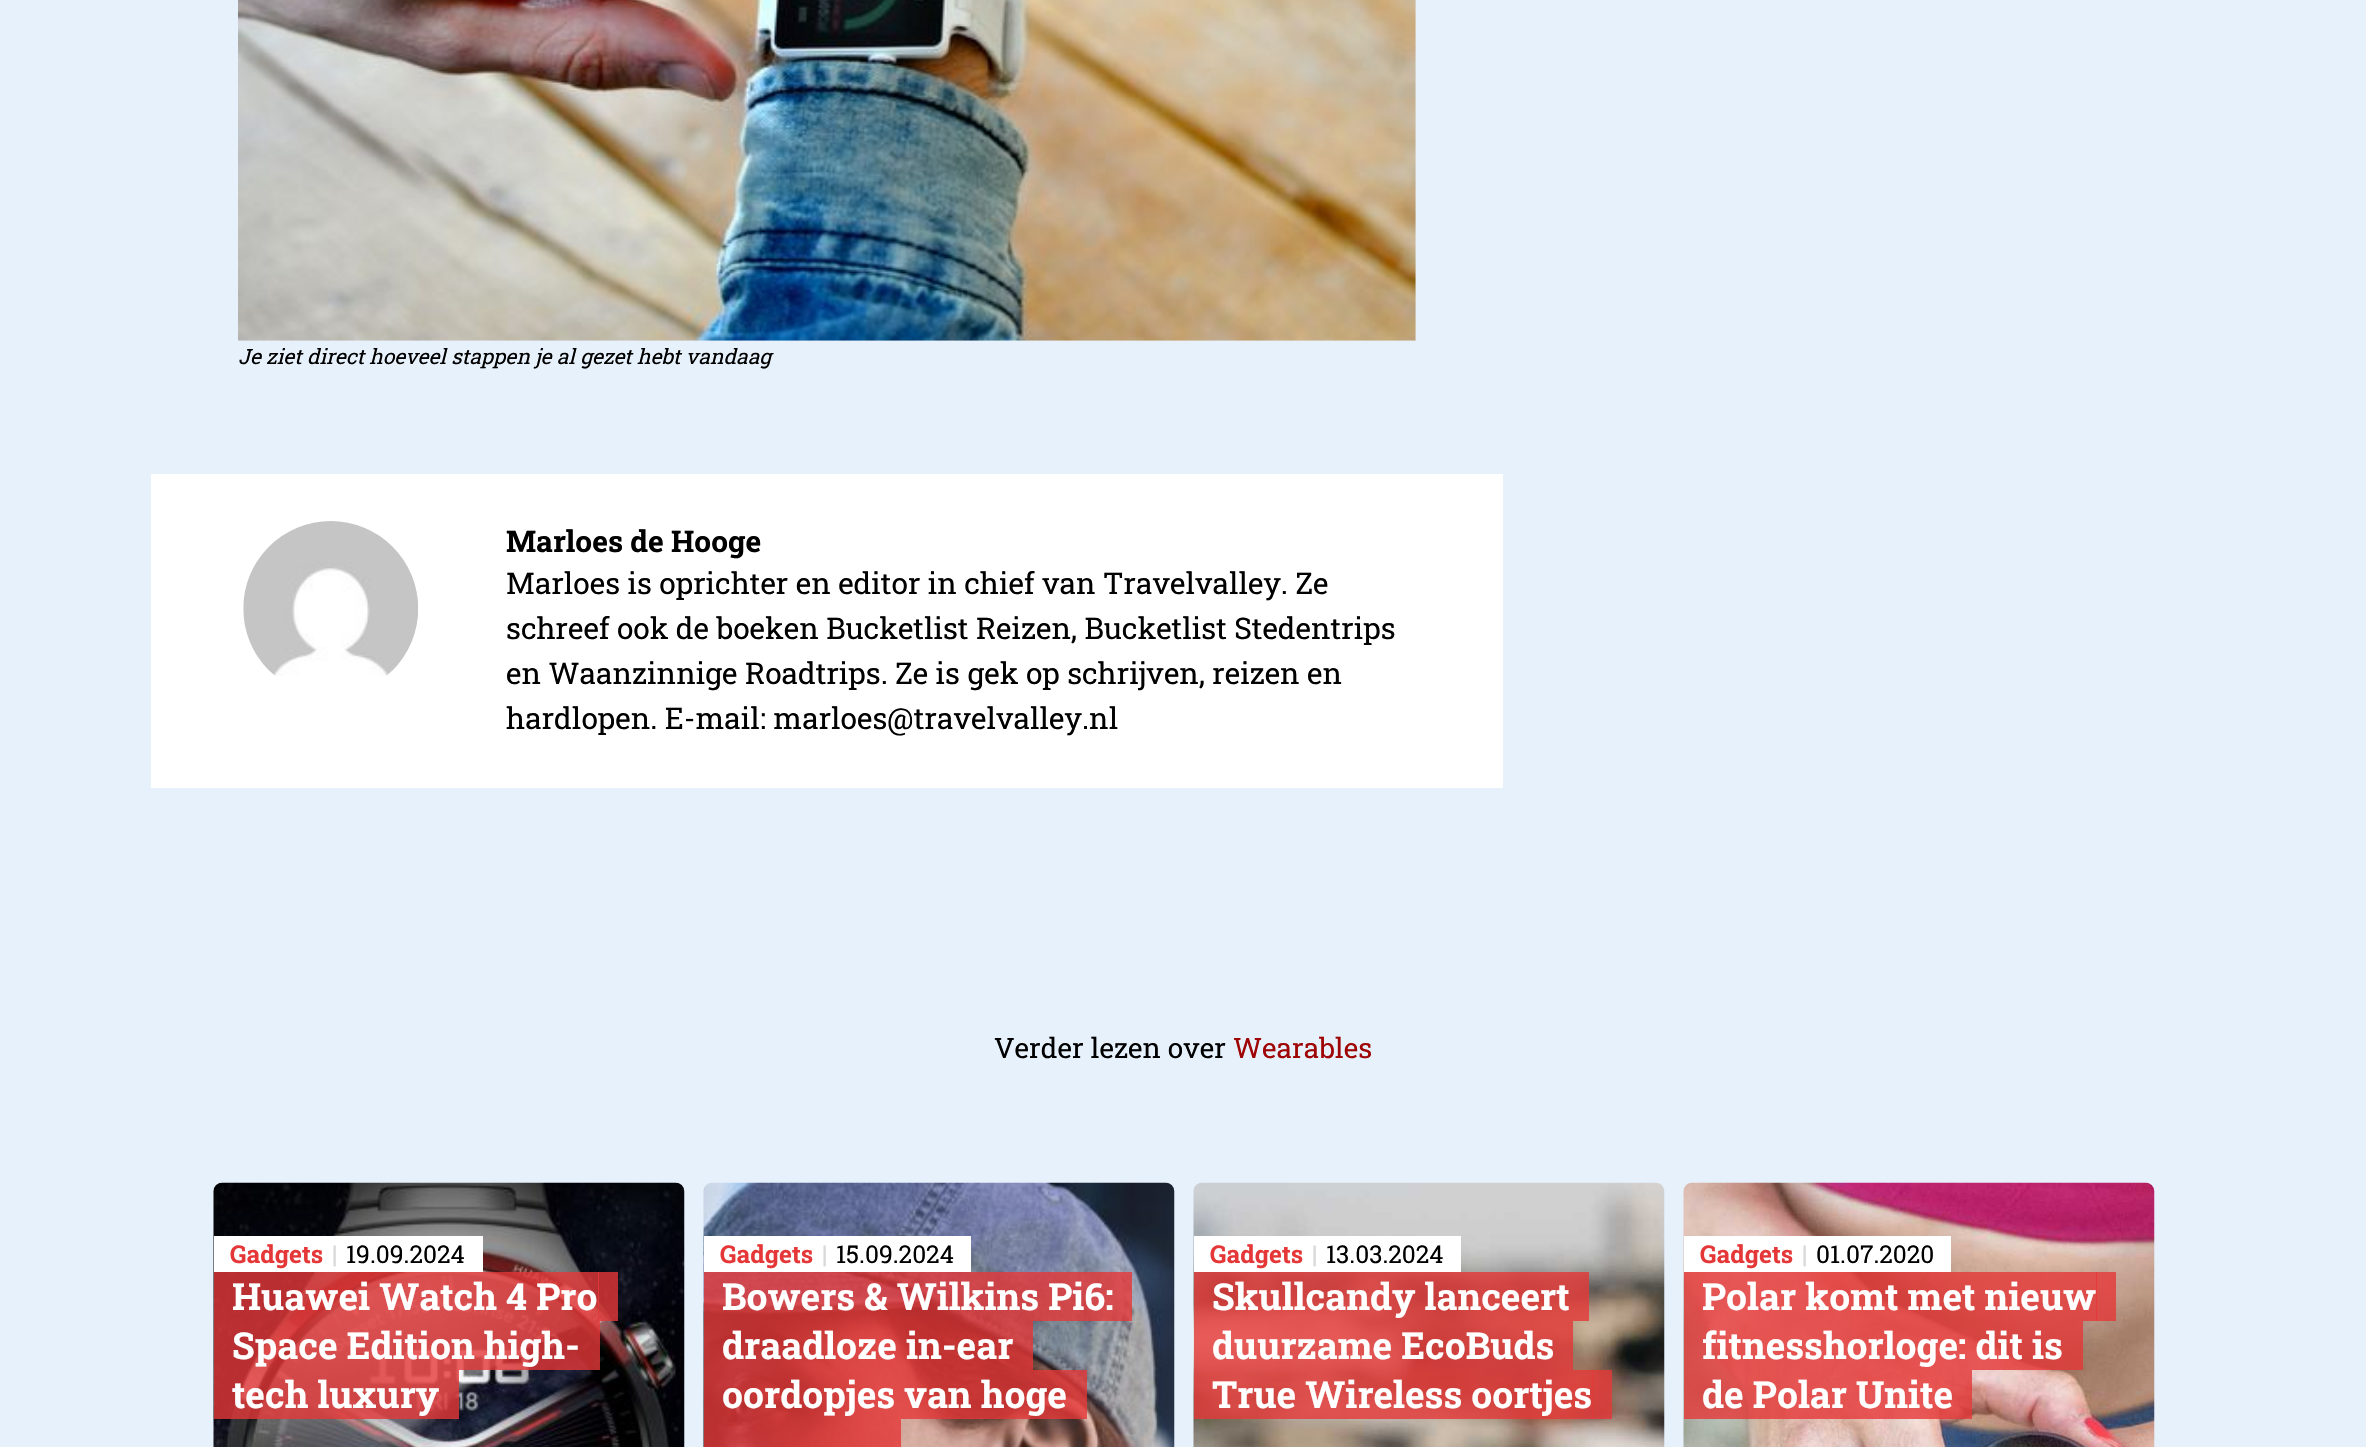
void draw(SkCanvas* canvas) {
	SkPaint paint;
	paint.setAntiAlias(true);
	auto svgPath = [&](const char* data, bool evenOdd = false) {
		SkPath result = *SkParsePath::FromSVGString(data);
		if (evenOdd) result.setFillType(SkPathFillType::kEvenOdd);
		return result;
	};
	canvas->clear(0xffe7f1fb);
	canvas->drawImageRect(SkImages::DeferredFromEncodedData(SkData::MakeFromFileName("img1.png")), SkRect::MakeXYWH(238, 0, 1178, 341), SkSamplingOptions());
	SkFont f1(fontMgr->matchFamilyStyle("Roboto Slab", SkFontStyle::Italic()), 21);
	f1.setSubpixel(true);
	paint.setColor(0xff000000);
	canvas->drawString("Je ziet direct hoeveel stappen je al gezet hebt vandaag", 238, 364, f1, paint);
	paint.setColor(0xffffffff);
	canvas->drawRect(SkRect::MakeXYWH(151, 474, 1352, 314), paint);
	canvas->drawImageRect(SkImages::DeferredFromEncodedData(SkData::MakeFromFileName("img2.png")), SkRect::MakeXYWH(243, 521, 175, 155), SkSamplingOptions());
	SkFont f2(fontMgr->matchFamilyStyle("Roboto Slab", SkFontStyle::Bold()), 29.85);
	f2.setSubpixel(true);
	paint.setColor(0xff000000);
	canvas->drawString("Marloes de Hooge", 506, 552, f2, paint);
	SkFont f3(fontMgr->matchFamilyStyle("Roboto Slab", SkFontStyle::Normal()), 29.85);
	f3.setSubpixel(true);
	canvas->drawString("Marloes is oprichter en editor in chief van Travelvalley. Ze", 506, 594, f3, paint);
	canvas->drawString("schreef ook de boeken Bucketlist Reizen, Bucketlist Stedentrips", 506, 639, f3, paint);
	canvas->drawString("en Waanzinnige Roadtrips. Ze is gek op schrijven, reizen en", 506, 684, f3, paint);
	canvas->drawString("hardlopen. E-mail: marloes@travelvalley.nl", 506, 729, f3, paint);
	SkFont f4(fontMgr->matchFamilyStyle("Roboto Slab", SkFontStyle::Normal()), 28);
	f4.setSubpixel(true);
	canvas->drawString("Verder lezen over", 994, 1058, f4, paint);
	paint.setColor(0xff9e0504);
	canvas->drawString("Wearables", 1233, 1058, f4, paint);
	canvas->drawImageRect(SkImages::DeferredFromEncodedData(SkData::MakeFromFileName("img3.png")), SkRect::MakeXYWH(213, 1182, 472, 265), SkSamplingOptions());
	paint.setColor(0xffffffff);
	canvas->drawRect(SkRect::MakeXYWH(214, 1236, 269, 36), paint);
	SkFont f5(fontMgr->matchFamilyStyle("Roboto Slab", SkFontStyle::Bold()), 24.5);
	f5.setSubpixel(true);
	paint.setColor(0xffe53737);
	canvas->drawString("Gadgets", 230, 1263, f5, paint);
	paint.setColor(0xffd8d8d8);
	canvas->drawString("|", 332, 1263, f5, paint);
	SkFont f6(fontMgr->matchFamilyStyle("Roboto Slab", SkFontStyle::Normal()), 24.5);
	f6.setSubpixel(true);
	paint.setColor(0xff000000);
	canvas->drawString("19.09.2024", 346, 1263, f6, paint);
	paint.setColor(0xcce53737);
	canvas->drawPath(svgPath("M214 1272H579H233V1321H214Z"), paint);
	canvas->drawPath(svgPath("M252 1272H618V1321H598V1272Z"), paint);
	canvas->drawRect(SkRect::MakeXYWH(233, 1272, 366, 49), paint);
	SkFont f7(fontMgr->matchFamilyStyle("Roboto Slab", SkFontStyle::Bold()), 37.25);
	f7.setSubpixel(true);
	paint.setColor(0xffffffff);
	canvas->drawString("Huawei Watch 4 Pro", 232, 1310, f7, paint);
	paint.setColor(0xcce53737);
	canvas->drawRect(SkRect::MakeXYWH(233, 1321, 348, 49), paint);
	paint.setColor(0xffffffff);
	canvas->drawString("Space Edition high-", 232, 1359, f7, paint);
	paint.setColor(0xcce53737);
	canvas->drawPath(svgPath("M214 1321H562H233V1370H214Z"), paint);
	canvas->drawPath(svgPath("M252 1321H600V1370H581V1321Z"), paint);
	canvas->drawPath(svgPath("M214 1370H420H233V1419H214Z"), paint);
	canvas->drawPath(svgPath("M252 1370H459V1419H439V1370Z"), paint);
	canvas->drawRect(SkRect::MakeXYWH(233, 1370, 206, 49), paint);
	paint.setColor(0xffffffff);
	canvas->drawString("tech luxury", 232, 1408, f7, paint);
	canvas->drawImageRect(SkImages::DeferredFromEncodedData(SkData::MakeFromFileName("img4.png")), SkRect::MakeXYWH(703, 1182, 472, 265), SkSamplingOptions());
	canvas->drawRect(SkRect::MakeXYWH(704, 1236, 267, 36), paint);
	paint.setColor(0xffe53737);
	canvas->drawString("Gadgets", 720, 1263, f5, paint);
	paint.setColor(0xffd8d8d8);
	canvas->drawString("|", 822, 1263, f5, paint);
	paint.setColor(0xff000000);
	canvas->drawString("15.09.2024", 836, 1263, f6, paint);
	paint.setColor(0xcce53737);
	canvas->drawPath(svgPath("M704 1272H1094H723V1321H704Z"), paint);
	canvas->drawRect(SkRect::MakeXYWH(723, 1272, 390, 49), paint);
	paint.setColor(0xffffffff);
	canvas->drawString("Bowers & Wilkins Pi6:", 722, 1310, f7, paint);
	paint.setColor(0xcce53737);
	canvas->drawPath(svgPath("M742 1272H1132V1321H1113V1272Z"), paint);
	canvas->drawPath(svgPath("M742 1321H1033V1370H1013V1321Z"), paint);
	canvas->drawRect(SkRect::MakeXYWH(723, 1321, 290, 49), paint);
	paint.setColor(0xffffffff);
	canvas->drawString("draadloze in-ear", 722, 1359, f7, paint);
	paint.setColor(0xcce53737);
	canvas->drawPath(svgPath("M704 1321H994H723V1370H704Z"), paint);
	canvas->drawRect(SkRect::MakeXYWH(723, 1370, 345, 49), paint);
	paint.setColor(0xffffffff);
	canvas->drawString("oordopjes van hoge", 722, 1408, f7, paint);
	paint.setColor(0xcce53737);
	canvas->drawPath(svgPath("M704 1370H1048H723V1419H704Z"), paint);
	canvas->drawPath(svgPath("M742 1370H1087V1419H1068V1370Z"), paint);
	canvas->drawPath(svgPath("M704 1419H863H723V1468H704Z"), paint);
	canvas->drawPath(svgPath("M742 1419H901V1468H882V1419Z"), paint);
	canvas->drawRect(SkRect::MakeXYWH(723, 1419, 159, 28), paint);
	canvas->drawImageRect(SkImages::DeferredFromEncodedData(SkData::MakeFromFileName("img5.png")), SkRect::MakeXYWH(1193, 1182, 472, 265), SkSamplingOptions());
	paint.setColor(0xffffffff);
	canvas->drawRect(SkRect::MakeXYWH(1194, 1236, 267, 36), paint);
	paint.setColor(0xffe53737);
	canvas->drawString("Gadgets", 1210, 1263, f5, paint);
	paint.setColor(0xffd8d8d8);
	canvas->drawString("|", 1312, 1263, f5, paint);
	paint.setColor(0xff000000);
	canvas->drawString("13.03.2024", 1326, 1263, f6, paint);
	paint.setColor(0xcce53737);
	canvas->drawRect(SkRect::MakeXYWH(1213, 1272, 357, 49), paint);
	paint.setColor(0xffffffff);
	canvas->drawString("Skullcandy lanceert", 1212, 1310, f7, paint);
	paint.setColor(0xcce53737);
	canvas->drawPath(svgPath("M1194 1272H1551H1213V1321H1194Z"), paint);
	canvas->drawPath(svgPath("M1232 1272H1589V1321H1570V1272Z"), paint);
	canvas->drawRect(SkRect::MakeXYWH(1213, 1321, 341, 49), paint);
	paint.setColor(0xffffffff);
	canvas->drawString("duurzame EcoBuds", 1212, 1359, f7, paint);
	paint.setColor(0xcce53737);
	canvas->drawPath(svgPath("M1194 1321H1535H1213V1370H1194Z"), paint);
	canvas->drawPath(svgPath("M1232 1321H1573V1370H1554V1321Z"), paint);
	canvas->drawPath(svgPath("M1194 1370H1573H1213V1419H1194Z"), paint);
	canvas->drawPath(svgPath("M1232 1370H1612V1419H1592V1370Z"), paint);
	canvas->drawRect(SkRect::MakeXYWH(1213, 1370, 380, 49), paint);
	paint.setColor(0xffffffff);
	canvas->drawString("True Wireless oortjes", 1212, 1408, f7, paint);
	canvas->drawImageRect(SkImages::DeferredFromEncodedData(SkData::MakeFromFileName("img6.png")), SkRect::MakeXYWH(1683, 1182, 472, 265), SkSamplingOptions());
	canvas->drawRect(SkRect::MakeXYWH(1684, 1236, 267, 36), paint);
	paint.setColor(0xffe53737);
	canvas->drawString("Gadgets", 1700, 1263, f5, paint);
	paint.setColor(0xffd8d8d8);
	canvas->drawString("|", 1802, 1263, f5, paint);
	paint.setColor(0xff000000);
	canvas->drawString("01.07.2020", 1816, 1263, f6, paint);
	paint.setColor(0xcce53737);
	canvas->drawPath(svgPath("M1684 1272H2077H1703V1321H1684Z"), paint);
	canvas->drawPath(svgPath("M1722 1272H2116V1321H2096V1272Z"), paint);
	canvas->drawRect(SkRect::MakeXYWH(1703, 1272, 394, 49), paint);
	paint.setColor(0xffffffff);
	canvas->drawString("Polar komt met nieuw", 1702, 1310, f7, paint);
	paint.setColor(0xcce53737);
	canvas->drawPath(svgPath("M1684 1321H2044H1703V1370H1684Z"), paint);
	canvas->drawRect(SkRect::MakeXYWH(1703, 1321, 360, 49), paint);
	paint.setColor(0xffffffff);
	canvas->drawString("fitnesshorloge: dit is", 1702, 1359, f7, paint);
	paint.setColor(0xcce53737);
	canvas->drawPath(svgPath("M1722 1321H2083V1370H2063V1321Z"), paint);
	canvas->drawRect(SkRect::MakeXYWH(1703, 1370, 250, 49), paint);
	paint.setColor(0xffffffff);
	canvas->drawString("de Polar Unite", 1702, 1408, f7, paint);
	paint.setColor(0xcce53737);
	canvas->drawPath(svgPath("M1684 1370H1934H1703V1419H1684Z"), paint);
	canvas->drawPath(svgPath("M1722 1370H1972V1419H1953V1370Z"), paint);
}
